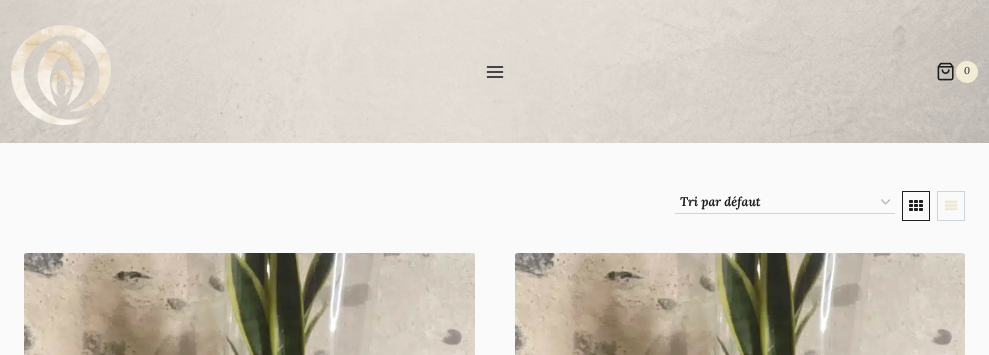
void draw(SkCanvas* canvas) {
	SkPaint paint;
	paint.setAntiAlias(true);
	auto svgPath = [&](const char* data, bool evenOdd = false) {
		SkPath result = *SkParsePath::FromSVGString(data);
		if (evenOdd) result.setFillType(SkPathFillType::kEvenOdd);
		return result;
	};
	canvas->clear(0xfffafafa);
	canvas->drawImageRect(SkImages::DeferredFromEncodedData(SkData::MakeFromFileName("img1.png")), SkRect::MakeXYWH(0, 0, 989, 143), SkSamplingOptions());
	canvas->drawImageRect(SkImages::DeferredFromEncodedData(SkData::MakeFromFileName("img2.png")), SkRect::MakeXYWH(11, 25, 100, 100), SkSamplingOptions());
	canvas->drawImageRect(SkImages::DeferredFromEncodedData(SkData::MakeFromFileName("img3.png")), SkRect::MakeXYWH(486, 66, 18, 12), SkSamplingOptions());
	canvas->drawImageRect(SkImages::DeferredFromEncodedData(SkData::MakeFromFileName("img4.png")), SkRect::MakeXYWH(937, 62, 17, 19), SkSamplingOptions());
	paint.setColor(0xfff3ecd5);
	canvas->drawCircle(967, 72, 11, paint);
	SkFont f1(fontMgr->matchFamilyStyle("Lora", SkFontStyle::Italic()), 10);
	f1.setSubpixel(true);
	paint.setColor(0xff2d3748);
	canvas->drawString("0", 964, 74, f1, paint);
	paint.setStroke(true);
	paint.setStrokeWidth(1.4);
	paint.setColor(0xffbbbbbb);
	canvas->drawPath(svgPath("M881.5 199.5L885.5 204L890 199.5"), paint);
	paint.setStroke(false);
	paint.setColor(0xffcbd5e0);
	canvas->drawRect(SkRect::MakeXYWH(675, 213, 220, 1), paint);
	SkFont f2(fontMgr->matchFamilyStyle("Lora", SkFontStyle(600, SkFontStyle::kNormal_Width, SkFontStyle::kItalic_Slant)), 12.5);
	f2.setSubpixel(true);
	paint.setColor(0xff1e1e1e);
	canvas->drawString("Tri par défaut", 680, 206, f2, paint);
	paint.setStroke(true);
	paint.setStrokeWidth(1);
	canvas->drawRect(SkRect::MakeXYWH(902.5, 191.5, 27, 29), paint);
	canvas->drawImageRect(SkImages::DeferredFromEncodedData(SkData::MakeFromFileName("img5.png")), SkRect::MakeXYWH(909, 200, 14, 11), SkSamplingOptions());
	paint.setColor(0xffcbd5e0);
	canvas->drawRect(SkRect::MakeXYWH(937.5, 191.5, 27, 29), paint);
	canvas->drawImageRect(SkImages::DeferredFromEncodedData(SkData::MakeFromFileName("img6.png")), SkRect::MakeXYWH(944, 200, 14, 11), SkSamplingOptions());
	canvas->drawImageRect(SkImages::DeferredFromEncodedData(SkData::MakeFromFileName("img7.png")), SkRect::MakeXYWH(24, 253, 451, 102), SkSamplingOptions());
	canvas->drawImageRect(SkImages::DeferredFromEncodedData(SkData::MakeFromFileName("img8.png")), SkRect::MakeXYWH(515, 253, 450, 102), SkSamplingOptions());
}
